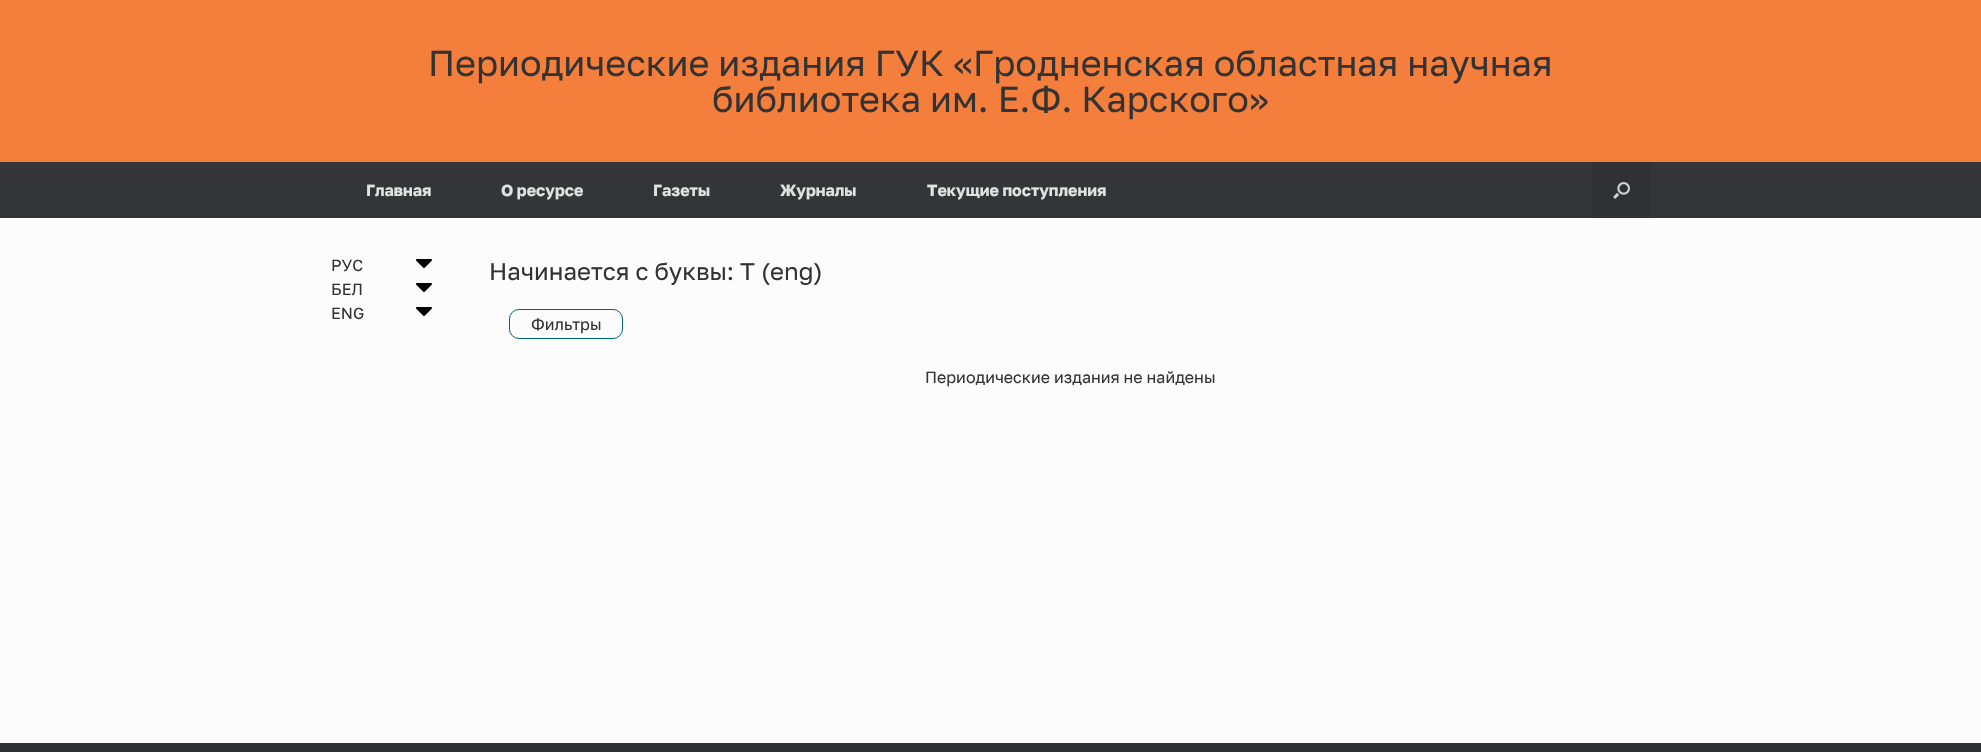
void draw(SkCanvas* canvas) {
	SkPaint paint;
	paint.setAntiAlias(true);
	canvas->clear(0xff2f3033);
	paint.setColor(0xfff47e3c);
	canvas->drawRect(SkRect::MakeXYWH(0, 0, 1981, 162), paint);
	SkFont f1(fontMgr->matchFamilyStyle("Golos", SkFontStyle::Normal()), 36);
	f1.setSubpixel(true);
	paint.setColor(0xff333333);
	canvas->drawString("Периодические издания ГУК «Гродненская областная научная", 428, 76, f1, paint);
	canvas->drawString("библиотека им. Е.Ф. Карского»", 712, 112, f1, paint);
	paint.setColor(0xff343538);
	canvas->drawRect(SkRect::MakeXYWH(0, 162, 1981, 56), paint);
	SkFont f2(fontMgr->matchFamilyStyle("Golos", SkFontStyle::Bold()), 16);
	f2.setSubpixel(true);
	paint.setColor(0xffe2e2e2);
	canvas->drawString("Главная", 366, 196, f2, paint);
	canvas->drawString("О ресурсе", 501, 196, f2, paint);
	canvas->drawString("Газеты", 653, 196, f2, paint);
	canvas->drawString("Журналы", 780, 196, f2, paint);
	canvas->drawString("Текущие поступления", 927, 196, f2, paint);
	paint.setColor(0xff303134);
	canvas->drawRect(SkRect::MakeXYWH(1592, 162, 59, 56), paint);
	canvas->drawImageRect(SkImages::DeferredFromEncodedData(SkData::MakeFromFileName("img1.png")), SkRect::MakeXYWH(1613, 182, 17, 17), SkSamplingOptions());
	paint.setColor(0xfffcfcfc);
	canvas->drawRect(SkRect::MakeXYWH(0, 218, 1981, 525), paint);
	SkFont f3(fontMgr->matchFamilyStyle("Golos", SkFontStyle::Normal()), 16);
	f3.setSubpixel(true);
	paint.setColor(0xff333333);
	canvas->drawString("РУС", 331, 271, f3, paint);
	canvas->drawImageRect(SkImages::DeferredFromEncodedData(SkData::MakeFromFileName("img2.png")), SkRect::MakeXYWH(416, 259, 16, 9), SkSamplingOptions());
	canvas->drawString("БЕЛ", 331, 295, f3, paint);
	canvas->drawImageRect(SkImages::DeferredFromEncodedData(SkData::MakeFromFileName("img2.png")), SkRect::MakeXYWH(416, 283, 16, 9), SkSamplingOptions());
	canvas->drawString("ENG", 331, 319, f3, paint);
	canvas->drawImageRect(SkImages::DeferredFromEncodedData(SkData::MakeFromFileName("img2.png")), SkRect::MakeXYWH(416, 307, 16, 9), SkSamplingOptions());
	SkFont f4(fontMgr->matchFamilyStyle("Golos", SkFontStyle::Normal()), 24);
	f4.setSubpixel(true);
	canvas->drawString("Начинается с буквы: T (eng)", 489, 280, f4, paint);
	paint.setStroke(true);
	paint.setStrokeWidth(1);
	paint.setColor(0xff006677);
	canvas->drawRoundRect(SkRect::MakeXYWH(509.5, 309.5, 113, 29), 9.5, 9.5, paint);
	paint.setStroke(false);
	paint.setColor(0xff333333);
	canvas->drawString("Фильтры", 531, 330, f3, paint);
	canvas->drawString("Периодические издания не найдены", 925, 383, f3, paint);
}
